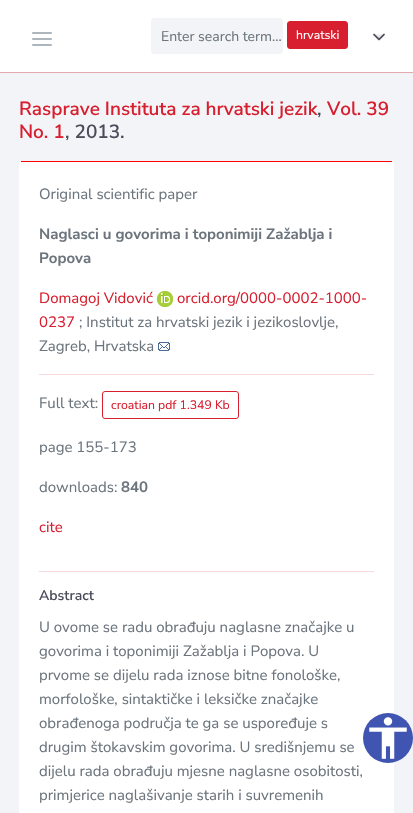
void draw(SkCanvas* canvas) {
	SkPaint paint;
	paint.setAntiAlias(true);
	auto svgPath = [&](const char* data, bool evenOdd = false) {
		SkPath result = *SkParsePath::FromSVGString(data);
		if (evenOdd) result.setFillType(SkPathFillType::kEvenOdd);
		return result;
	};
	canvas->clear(0xfff3f4f7);
	paint.setColor(0xfff1b1b6);
	canvas->drawRect(SkRect::MakeXYWH(0, 72, 413, 1), paint);
	paint.setColor(0x124b4b5a);
	paint.setMaskFilter(SkMaskFilter::MakeBlur(kNormal_SkBlurStyle, 0.5));
	canvas->drawRect(SkRect::MakeXYWH(0, 1, 413, 72), paint);
	paint.setMaskFilter(nullptr);
	paint.setColor(0xffffffff);
	canvas->drawRect(SkRect::MakeXYWH(0, 0, 413, 72), paint);
	paint.setStroke(true);
	paint.setStrokeWidth(2);
	paint.setStrokeCap(SkPaint::kRound_Cap);
	paint.setStrokeJoin(SkPaint::kRound_Join);
	paint.setColor(0xffadb5bd);
	canvas->drawPath(svgPath("M33 39H51M33 33H51M33 45H51"), paint);
	paint.setStroke(false);
	paint.setColor(0xfff3f4f7);
	canvas->drawRoundRect(SkRect::MakeXYWH(151, 18, 132, 36), 4, 4, paint);
	SkFont f1(fontMgr->matchFamilyStyle("Nunito Sans", SkFontStyle::Normal()), 14);
	f1.setSubpixel(true);
	paint.setColor(0xff6c757d);
	canvas->drawString("Enter search term...", 161, 41, f1, paint);
	paint.setColor(0xffd81f30);
	canvas->drawRoundRect(SkRect::MakeXYWH(287.5, 21.5, 60, 27), 2.5, 2.5, paint);
	paint.setStroke(true);
	paint.setStrokeWidth(1);
	paint.setStrokeCap(SkPaint::kButt_Cap);
	paint.setStrokeJoin(SkPaint::kMiter_Join);
	canvas->drawRoundRect(SkRect::MakeXYWH(287.5, 21.5, 60, 27), 2.5, 2.5, paint);
	SkFont f2(fontMgr->matchFamilyStyle("Nunito Sans", SkFontStyle::Normal()), 12.25);
	f2.setSubpixel(true);
	paint.setStroke(false);
	paint.setColor(0xffffffff);
	canvas->drawString("hrvatski", 296, 39, f2, paint);
	canvas->drawImageRect(SkImages::DeferredFromEncodedData(SkData::MakeFromFileName("img1.png")), SkRect::MakeXYWH(373, 33, 12, 8), SkSamplingOptions());
	SkFont f3(fontMgr->matchFamilyStyle("Nunito Sans", SkFontStyle(600, SkFontStyle::kNormal_Width, SkFontStyle::kUpright_Slant)), 19);
	f3.setSubpixel(true);
	paint.setColor(0xffd81f30);
	canvas->drawString("Rasprave Instituta za hrvatski jezik", 19, 115, f3, paint);
	paint.setColor(0xff4b4b5a);
	canvas->drawString(",", 317, 115, f3, paint);
	paint.setColor(0xffd81f30);
	canvas->drawString("Vol. 39", 327, 115, f3, paint);
	canvas->drawString("No. 1", 19, 138, f3, paint);
	paint.setColor(0xff4b4b5a);
	canvas->drawString(", 2013.", 65, 138, f3, paint);
	paint.setColor(0xffffffff);
	canvas->drawRoundRect(SkRect::MakeXYWH(19, 161, 375, 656), 4, 4, paint);
	paint.setColor(0xffff0000);
	canvas->drawRect(SkRect::MakeXYWH(21, 161, 371, 1), paint);
	SkFont f4(fontMgr->matchFamilyStyle("Nunito Sans", SkFontStyle::Normal()), 15);
	f4.setSubpixel(true);
	paint.setColor(0xff6c757d);
	canvas->drawString("Original scientific paper", 39, 199, f4, paint);
	SkFont f5(fontMgr->matchFamilyStyle("Nunito Sans", SkFontStyle::Bold()), 15);
	f5.setSubpixel(true);
	canvas->drawString("Naglasci u govorima i toponimiji Zažablja i", 39, 239, f5, paint);
	canvas->drawString("Popova", 39, 263, f5, paint);
	paint.setColor(0xffd81f30);
	canvas->drawString("Domagoj Vidović", 39, 303, f4, paint);
	canvas->drawImageRect(SkImages::DeferredFromEncodedData(SkData::MakeFromFileName("img2.png")), SkRect::MakeXYWH(157, 291, 16, 16), SkSamplingOptions());
	canvas->drawString("orcid.org/0000-0002-1000-", 177, 303, f4, paint);
	canvas->drawString("0237", 39, 327, f4, paint);
	paint.setColor(0xff6c757d);
	canvas->drawString("; Institut za hrvatski jezik i jezikoslovlje,", 79, 327, f4, paint);
	canvas->drawString("Zagreb, Hrvatska", 39, 351, f4, paint);
	canvas->drawImageRect(SkImages::DeferredFromEncodedData(SkData::MakeFromFileName("img3.png")), SkRect::MakeXYWH(158, 342, 12, 9), SkSamplingOptions());
	paint.setColor(0xfff8d9dc);
	canvas->drawRect(SkRect::MakeXYWH(39, 374, 335, 1), paint);
	paint.setColor(0xff6c757d);
	canvas->drawString("Full text:", 39, 408, f4, paint);
	paint.setStroke(true);
	paint.setColor(0xffd81f30);
	canvas->drawRoundRect(SkRect::MakeXYWH(102.5, 391.5, 136, 27), 2.5, 2.5, paint);
	paint.setStroke(false);
	canvas->drawString("croatian pdf 1.349 Kb", 111, 409, f2, paint);
	paint.setColor(0xff6c757d);
	canvas->drawString("page 155-173", 39, 452, f4, paint);
	canvas->drawString("downloads:", 39, 492, f4, paint);
	canvas->drawString("840", 121, 492, f5, paint);
	paint.setColor(0xffd81f30);
	canvas->drawString("cite", 39, 532, f4, paint);
	paint.setColor(0xfff8d9dc);
	canvas->drawRect(SkRect::MakeXYWH(39, 571, 335, 1), paint);
	SkFont f6(fontMgr->matchFamilyStyle("Nunito Sans", SkFontStyle(600, SkFontStyle::kNormal_Width, SkFontStyle::kUpright_Slant)), 14);
	f6.setSubpixel(true);
	paint.setColor(0xff4b4b5a);
	canvas->drawString("Abstract", 39, 600, f6, paint);
	paint.setColor(0xff6c757d);
	canvas->drawString("U ovome se radu obrađuju naglasne značajke u", 39, 632, f4, paint);
	canvas->drawString("govorima i toponimiji Zažablja i Popova. U", 39, 656, f4, paint);
	canvas->drawString("prvome se dijelu rada iznose bitne fonološke,", 39, 680, f4, paint);
	canvas->drawString("morfološke, sintaktičke i leksičke značajke", 39, 704, f4, paint);
	canvas->drawString("obrađenoga područja te ga se uspoređuje s", 39, 728, f4, paint);
	canvas->drawString("drugim štokavskim govorima. U središnjemu se", 39, 752, f4, paint);
	canvas->drawString("dijelu rada obrađuju mjesne naglasne osobitosti,", 39, 776, f4, paint);
	canvas->drawString("primjerice naglašivanje starih i suvremenih", 39, 800, f4, paint);
	paint.setColor(0xff4054b2);
	canvas->drawCircle(388, 738, 25, paint);
	canvas->drawImageRect(SkImages::DeferredFromEncodedData(SkData::MakeFromFileName("img4.png")), SkRect::MakeXYWH(369, 717, 38, 42), SkSamplingOptions());
}
